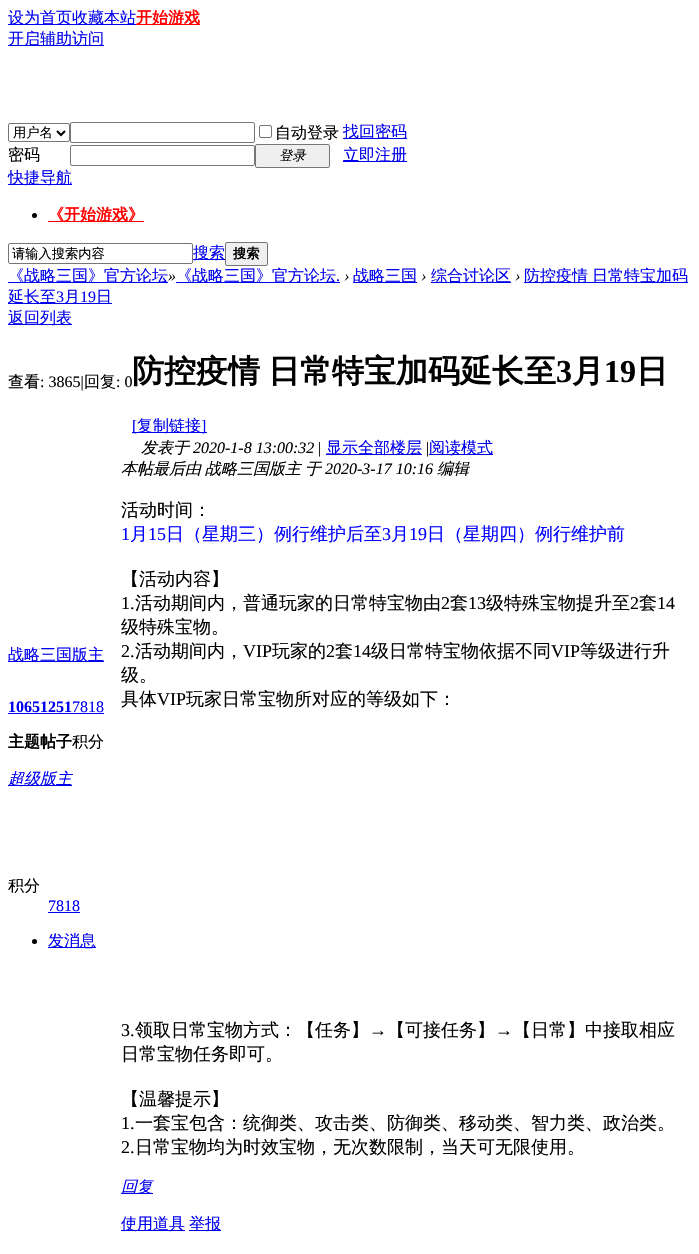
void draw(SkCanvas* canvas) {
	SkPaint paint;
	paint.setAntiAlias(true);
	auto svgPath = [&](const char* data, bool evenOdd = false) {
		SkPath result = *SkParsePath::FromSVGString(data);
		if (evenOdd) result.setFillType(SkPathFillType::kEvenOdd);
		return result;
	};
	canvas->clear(0xffffffff);
	paint.setColor(0xff0000ee);
	canvas->drawRect(SkRect::MakeXYWH(8, 24, 128, 1), paint);
	SkFont f1(fontMgr->matchFamilyStyle("WenQuanYi Zen Hei", SkFontStyle(500, SkFontStyle::kNormal_Width, SkFontStyle::kUpright_Slant)), 16);
	f1.setSubpixel(true);
	canvas->drawString("设为首页收藏本站", 8, 23, f1, paint);
	paint.setColor(0xffff0000);
	canvas->drawRect(SkRect::MakeXYWH(136, 24, 64, 1), paint);
	SkFont f2(fontMgr->matchFamilyStyle("WenQuanYi Zen Hei", SkFontStyle::Bold()), 16);
	f2.setSubpixel(true);
	canvas->drawString("开始游戏", 136, 23, f2, paint);
	paint.setColor(0xff0000ee);
	canvas->drawRect(SkRect::MakeXYWH(8, 45, 96, 1), paint);
	canvas->drawString("开启辅助访问", 8, 44, f1, paint);
	paint.setStroke(true);
	paint.setStrokeWidth(1);
	paint.setColor(0xff767676);
	canvas->drawRoundRect(SkRect::MakeXYWH(8.5, 123.5, 61, 18), 1.5, 1.5, paint);
	paint.setStrokeWidth(2);
	paint.setColor(0xff000000);
	canvas->drawPath(svgPath("M57 131L61 135L65 131"), paint);
	SkFont f3(fontMgr->matchFamilyStyle("WenQuanYi Zen Hei", SkFontStyle(500, SkFontStyle::kNormal_Width, SkFontStyle::kUpright_Slant)), 13.25);
	f3.setSubpixel(true);
	paint.setStroke(false);
	canvas->drawString("用户名", 13, 137, f3, paint);
	paint.setStroke(true);
	paint.setStrokeWidth(1);
	paint.setColor(0xff767676);
	canvas->drawRoundRect(SkRect::MakeXYWH(70.5, 122.5, 184, 20), 1.5, 1.5, paint);
	canvas->drawRoundRect(SkRect::MakeXYWH(259.5, 125.5, 12, 12), 1.5, 1.5, paint);
	paint.setStroke(false);
	paint.setColor(0xff000000);
	canvas->drawString("自动登录", 275, 138, f1, paint);
	paint.setColor(0xff0000ee);
	canvas->drawRect(SkRect::MakeXYWH(343, 138, 64, 1), paint);
	canvas->drawString("找回密码", 343, 137, f1, paint);
	paint.setColor(0xff000000);
	canvas->drawString("密码", 8, 160, f1, paint);
	paint.setStroke(true);
	paint.setColor(0xff767676);
	canvas->drawRoundRect(SkRect::MakeXYWH(70.5, 145.5, 184, 20), 1.5, 1.5, paint);
	paint.setStroke(false);
	paint.setColor(0xffefefef);
	canvas->drawRoundRect(SkRect::MakeXYWH(255.5, 144.5, 74, 23), 1.5, 1.5, paint);
	paint.setStroke(true);
	paint.setColor(0xff767676);
	canvas->drawRoundRect(SkRect::MakeXYWH(255.5, 144.5, 74, 23), 1.5, 1.5, paint);
	SkFont f4(fontMgr->matchFamilyStyle("WenQuanYi Zen Hei", SkFontStyle(500, SkFontStyle::kNormal_Width, SkFontStyle::kItalic_Slant)), 13.25);
	f4.setSubpixel(true);
	paint.setStroke(false);
	paint.setColor(0xff000000);
	canvas->drawString("登录", 279, 160, f4, paint);
	paint.setColor(0xff0000ee);
	canvas->drawRect(SkRect::MakeXYWH(343, 161, 64, 1), paint);
	canvas->drawString("立即注册", 343, 160, f1, paint);
	canvas->drawRect(SkRect::MakeXYWH(8, 184, 64, 1), paint);
	canvas->drawString("快捷导航", 8, 183, f1, paint);
	paint.setColor(0xff000000);
	canvas->drawCircle(34.5, 215.5, 2.5, paint);
	paint.setColor(0xffff0000);
	canvas->drawRect(SkRect::MakeXYWH(48, 221, 96, 1), paint);
	canvas->drawString("《开始游戏》", 48, 220, f2, paint);
	paint.setStroke(true);
	paint.setColor(0xff767676);
	canvas->drawRoundRect(SkRect::MakeXYWH(8.5, 243.5, 184, 20), 1.5, 1.5, paint);
	paint.setStroke(false);
	paint.setColor(0xff000000);
	canvas->drawString("请输入搜索内容", 12, 258, f3, paint);
	paint.setColor(0xff0000ee);
	canvas->drawRect(SkRect::MakeXYWH(193, 259, 32, 1), paint);
	canvas->drawString("搜索", 193, 258, f1, paint);
	paint.setColor(0xffefefef);
	canvas->drawRoundRect(SkRect::MakeXYWH(225.5, 242.5, 42, 23), 1.5, 1.5, paint);
	paint.setStroke(true);
	paint.setColor(0xff767676);
	canvas->drawRoundRect(SkRect::MakeXYWH(225.5, 242.5, 42, 23), 1.5, 1.5, paint);
	SkFont f5(fontMgr->matchFamilyStyle("WenQuanYi Zen Hei", SkFontStyle::Bold()), 13.25);
	f5.setSubpixel(true);
	paint.setStroke(false);
	paint.setColor(0xff000000);
	canvas->drawString("搜索", 233, 258, f5, paint);
	paint.setColor(0xff0000ee);
	canvas->drawRect(SkRect::MakeXYWH(8, 282, 160, 1), paint);
	canvas->drawString("《战略三国》官方论坛", 8, 281, f1, paint);
	SkFont f6(fontMgr->matchFamilyStyle("Liberation Serif", SkFontStyle::Italic()), 16);
	f6.setSubpixel(true);
	paint.setColor(0xff000000);
	canvas->drawString("»", 168, 281, f6, paint);
	paint.setColor(0xff0000ee);
	canvas->drawRect(SkRect::MakeXYWH(176, 282, 164, 1), paint);
	canvas->drawString("《战略三国》官方论坛", 176, 281, f1, paint);
	SkFont f7(fontMgr->matchFamilyStyle("Liberation Serif", SkFontStyle::Normal()), 16);
	f7.setSubpixel(true);
	canvas->drawString(".", 336, 281, f7, paint);
	paint.setColor(0xff000000);
	canvas->drawString("›", 344, 281, f6, paint);
	paint.setColor(0xff0000ee);
	canvas->drawRect(SkRect::MakeXYWH(353, 282, 64, 1), paint);
	canvas->drawString("战略三国", 353, 281, f1, paint);
	paint.setColor(0xff000000);
	canvas->drawString("›", 421, 281, f6, paint);
	paint.setColor(0xff0000ee);
	canvas->drawRect(SkRect::MakeXYWH(431, 282, 80, 1), paint);
	canvas->drawString("综合讨论区", 431, 281, f1, paint);
	paint.setColor(0xff000000);
	canvas->drawString("›", 515, 281, f6, paint);
	paint.setColor(0xff0000ee);
	canvas->drawRect(SkRect::MakeXYWH(524, 282, 164, 1), paint);
	canvas->drawString("防控疫情", 524, 281, f1, paint);
	canvas->drawString("日常特宝加码", 592, 281, f1, paint);
	canvas->drawRect(SkRect::MakeXYWH(8, 303, 104, 1), paint);
	canvas->drawString("延长至", 8, 302, f1, paint);
	canvas->drawString("3", 56, 302, f7, paint);
	canvas->drawString("月", 64, 302, f1, paint);
	canvas->drawString("19", 80, 302, f7, paint);
	canvas->drawString("日", 96, 302, f1, paint);
	canvas->drawRect(SkRect::MakeXYWH(8, 324, 64, 1), paint);
	canvas->drawString("返回列表", 8, 323, f1, paint);
	paint.setColor(0xff000000);
	canvas->drawString("查看", 8, 387, f1, paint);
	canvas->drawString(": 3865|", 40, 387, f7, paint);
	canvas->drawString("回复", 84, 387, f1, paint);
	canvas->drawString(": 0", 116, 387, f7, paint);
	SkFont f8(fontMgr->matchFamilyStyle("WenQuanYi Zen Hei", SkFontStyle::Bold()), 32);
	f8.setSubpixel(true);
	canvas->drawString("防控疫情", 132, 382, f8, paint);
	canvas->drawString("日常特宝加码延长至", 268, 382, f8, paint);
	SkFont f9(fontMgr->matchFamilyStyle("Liberation Serif", SkFontStyle::Bold()), 32);
	f9.setSubpixel(true);
	canvas->drawString("3", 556, 382, f9, paint);
	canvas->drawString("月", 572, 382, f8, paint);
	canvas->drawString("19", 604, 382, f9, paint);
	canvas->drawString("日", 636, 382, f8, paint);
	paint.setColor(0xff0000ee);
	canvas->drawRect(SkRect::MakeXYWH(132, 432, 75, 1), paint);
	canvas->drawString("[", 132, 431, f7, paint);
	canvas->drawString("复制链接", 137, 431, f1, paint);
	canvas->drawString("]", 201, 431, f7, paint);
	canvas->drawRect(SkRect::MakeXYWH(8, 661, 96, 1), paint);
	canvas->drawString("战略三国版主", 8, 660, f1, paint);
	SkFont f10(fontMgr->matchFamilyStyle("Liberation Serif", SkFontStyle::Bold()), 16);
	f10.setSubpixel(true);
	canvas->drawString("10651251", 8, 712, f10, paint);
	canvas->drawRect(SkRect::MakeXYWH(8, 713, 96, 1), paint);
	paint.setColor(0xff000000);
	canvas->drawString("主题帖子", 8, 747, f2, paint);
	paint.setColor(0xff0000ee);
	canvas->drawString("7818", 72, 712, f7, paint);
	paint.setColor(0xff000000);
	canvas->drawString("积分", 72, 747, f1, paint);
	paint.setColor(0xff0000ee);
	canvas->drawRect(SkRect::MakeXYWH(8, 785, 64, 1), paint);
	SkFont f11(fontMgr->matchFamilyStyle("WenQuanYi Zen Hei", SkFontStyle(500, SkFontStyle::kNormal_Width, SkFontStyle::kItalic_Slant)), 16);
	f11.setSubpixel(true);
	canvas->drawString("超级版主", 8, 784, f11, paint);
	paint.setColor(0xff000000);
	canvas->drawString("积分", 8, 891, f1, paint);
	paint.setColor(0xff0000ee);
	canvas->drawString("7818", 48, 911, f7, paint);
	canvas->drawRect(SkRect::MakeXYWH(48, 912, 32, 1), paint);
	paint.setColor(0xff000000);
	canvas->drawCircle(34.5, 941.5, 2.5, paint);
	paint.setColor(0xff0000ee);
	canvas->drawRect(SkRect::MakeXYWH(48, 947, 48, 1), paint);
	canvas->drawString("发消息", 48, 946, f1, paint);
	paint.setColor(0xff000000);
	canvas->drawString("发表于", 141, 453, f11, paint);
	canvas->drawString("2020-1-8 13:00:32", 193, 453, f6, paint);
	canvas->drawString("|", 318, 453, f7, paint);
	paint.setColor(0xff0000ee);
	canvas->drawRect(SkRect::MakeXYWH(326, 454, 96, 1), paint);
	canvas->drawString("显示全部楼层", 326, 453, f1, paint);
	paint.setColor(0xff000000);
	canvas->drawString("|", 426, 453, f7, paint);
	paint.setColor(0xff0000ee);
	canvas->drawRect(SkRect::MakeXYWH(429, 454, 64, 1), paint);
	canvas->drawString("阅读模式", 429, 453, f1, paint);
	paint.setColor(0xff000000);
	canvas->drawString("本帖最后由", 121, 474, f11, paint);
	canvas->drawString("战略三国版主", 205, 474, f11, paint);
	canvas->drawString("于", 305, 474, f11, paint);
	canvas->drawString("2020-3-17 10:16", 325, 474, f6, paint);
	canvas->drawString("编辑", 437, 474, f11, paint);
	SkFont f12(fontMgr->matchFamilyStyle("WenQuanYi Zen Hei", SkFontStyle(500, SkFontStyle::kNormal_Width, SkFontStyle::kUpright_Slant)), 18);
	f12.setSubpixel(true);
	canvas->drawString("活动时间：", 121, 516, f12, paint);
	SkFont f13(fontMgr->matchFamilyStyle("Liberation Serif", SkFontStyle::Normal()), 18);
	f13.setSubpixel(true);
	paint.setColor(0xff0000ff);
	canvas->drawString("1", 121, 540, f13, paint);
	canvas->drawString("月", 130, 540, f12, paint);
	canvas->drawString("15", 148, 540, f13, paint);
	canvas->drawString("日（星期三）例行维护后至", 166, 540, f12, paint);
	canvas->drawString("3", 382, 540, f13, paint);
	canvas->drawString("月", 391, 540, f12, paint);
	canvas->drawString("19", 409, 540, f13, paint);
	canvas->drawString("日（星期四）例行维护前", 427, 540, f12, paint);
	paint.setColor(0xff000000);
	canvas->drawString("【活动内容】", 121, 585, f12, paint);
	canvas->drawString("1.", 121, 609, f13, paint);
	canvas->drawString("活动期间内，普通玩家的日常特宝物由", 135, 609, f12, paint);
	canvas->drawString("2", 441, 609, f13, paint);
	canvas->drawString("套", 450, 609, f12, paint);
	canvas->drawString("13", 468, 609, f13, paint);
	canvas->drawString("级特殊宝物提升至", 486, 609, f12, paint);
	canvas->drawString("2", 630, 609, f13, paint);
	canvas->drawString("套", 639, 609, f12, paint);
	canvas->drawString("14", 657, 609, f13, paint);
	canvas->drawString("级特殊宝物。", 121, 633, f12, paint);
	canvas->drawString("2.", 121, 657, f13, paint);
	canvas->drawString("活动期间内，", 135, 657, f12, paint);
	canvas->drawString("VIP", 243, 657, f13, paint);
	canvas->drawString("玩家的", 272, 657, f12, paint);
	canvas->drawString("2", 326, 657, f13, paint);
	canvas->drawString("套", 335, 657, f12, paint);
	canvas->drawString("14", 353, 657, f13, paint);
	canvas->drawString("级日常特宝物依据不同", 371, 657, f12, paint);
	canvas->drawString("VIP", 551, 657, f13, paint);
	canvas->drawString("等级进行升", 580, 657, f12, paint);
	canvas->drawString("级。", 121, 681, f12, paint);
	canvas->drawString("具体", 121, 705, f12, paint);
	canvas->drawString("VIP", 157, 705, f13, paint);
	canvas->drawString("玩家日常宝物所对应的等级如下：", 186, 705, f12, paint);
	canvas->drawString("3.", 121, 1036, f13, paint);
	canvas->drawString("领取日常宝物方式：【任务】", 135, 1036, f12, paint);
	canvas->drawString("→", 369, 1036, f13, paint);
	canvas->drawString("【可接任务】", 387, 1036, f12, paint);
	canvas->drawString("→", 495, 1036, f13, paint);
	canvas->drawString("【日常】中接取相应", 513, 1036, f12, paint);
	canvas->drawString("日常宝物任务即可。", 121, 1060, f12, paint);
	canvas->drawString("【温馨提示】", 121, 1105, f12, paint);
	canvas->drawString("1.", 121, 1129, f13, paint);
	canvas->drawString("一套宝包含：统御类、攻击类、防御类、移动类、智力类、政治类。", 135, 1129, f12, paint);
	canvas->drawString("2.", 121, 1153, f13, paint);
	canvas->drawString("日常宝物均为时效宝物，无次数限制，当天可无限使用。", 135, 1153, f12, paint);
	paint.setColor(0xff0000ee);
	canvas->drawRect(SkRect::MakeXYWH(121, 1193, 32, 1), paint);
	canvas->drawString("回复", 121, 1192, f11, paint);
	canvas->drawRect(SkRect::MakeXYWH(121, 1230, 64, 1), paint);
	canvas->drawString("使用道具", 121, 1229, f1, paint);
	canvas->drawRect(SkRect::MakeXYWH(189, 1230, 32, 1), paint);
	canvas->drawString("举报", 189, 1229, f1, paint);
}
